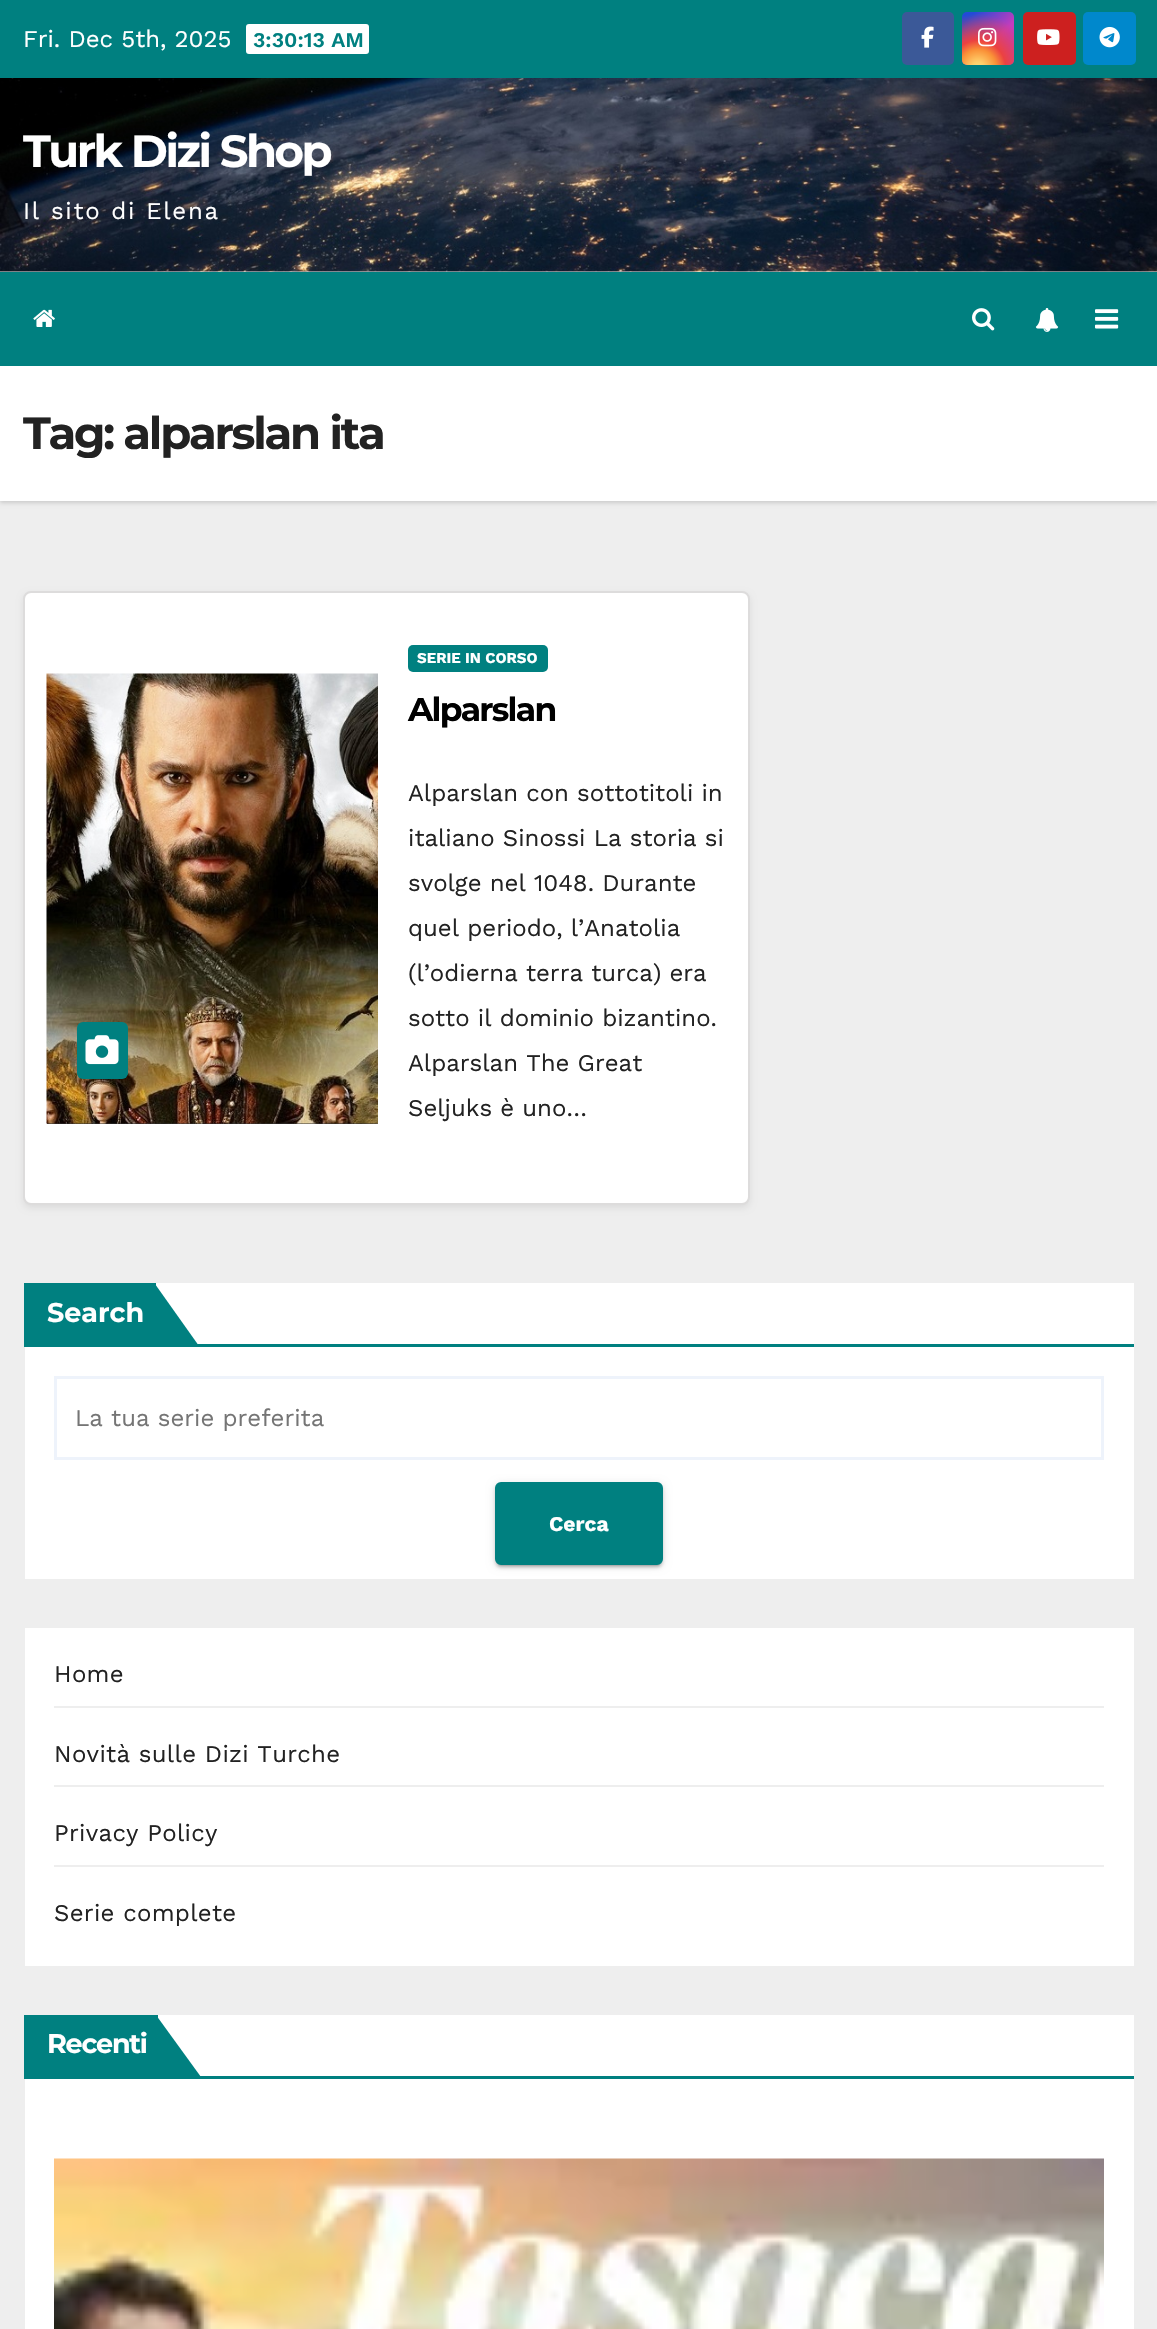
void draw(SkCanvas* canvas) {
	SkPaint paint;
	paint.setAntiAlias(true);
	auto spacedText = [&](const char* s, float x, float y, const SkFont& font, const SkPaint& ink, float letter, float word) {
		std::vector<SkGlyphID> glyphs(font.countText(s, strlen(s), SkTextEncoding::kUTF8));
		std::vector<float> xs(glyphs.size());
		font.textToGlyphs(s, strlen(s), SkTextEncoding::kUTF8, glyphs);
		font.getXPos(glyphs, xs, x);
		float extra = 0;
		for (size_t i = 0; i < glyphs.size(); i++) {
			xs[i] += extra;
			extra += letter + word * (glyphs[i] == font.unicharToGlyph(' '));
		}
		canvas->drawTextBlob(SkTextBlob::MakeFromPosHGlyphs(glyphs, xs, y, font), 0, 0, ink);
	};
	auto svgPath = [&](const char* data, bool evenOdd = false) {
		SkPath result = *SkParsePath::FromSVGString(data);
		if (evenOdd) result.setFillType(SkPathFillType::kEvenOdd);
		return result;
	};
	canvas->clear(0xffeeeeee);
	paint.setColor(0xff008080);
	canvas->drawRect(SkRect::MakeXYWH(0, 0, 1157, 78), paint);
	SkFont f1(fontMgr->matchFamilyStyle("Work Sans", SkFontStyle::Normal()), 24);
	f1.setSubpixel(true);
	paint.setColor(0xffffffff);
	canvas->drawString("Fri. Dec 5th, 2025", 23, 47, f1, paint);
	canvas->drawRoundRect(SkRect::MakeXYWH(246, 24, 123, 30), 3, 3, paint);
	SkFont f2(fontMgr->matchFamilyStyle("Work Sans", SkFontStyle(600, SkFontStyle::kNormal_Width, SkFontStyle::kUpright_Slant)), 21);
	f2.setSubpixel(true);
	paint.setColor(0xff008080);
	canvas->drawString("3:30:13 AM", 253, 47, f2, paint);
	paint.setColor(0xff3b5998);
	canvas->drawRoundRect(SkRect::MakeXYWH(902, 12, 52, 53), 5, 5, paint);
	canvas->drawImageRect(SkImages::DeferredFromEncodedData(SkData::MakeFromFileName("img1.png")), SkRect::MakeXYWH(921, 26, 13, 22), SkSamplingOptions());
	{
		const SkColor colors[] = {0xff234bd7, 0xffc33cbe};
		const float stops[] = {0.12, 0.58};
		const SkPoint ends[] = {{962, 12}, {1014, 65}};
		paint.setShader(SkGradientShader::MakeLinear(ends, colors, stops, 2, SkTileMode::kClamp));
		paint.setAlpha(255);
	}
	canvas->drawRoundRect(SkRect::MakeXYWH(962, 12, 52, 53), 5, 5, paint);
	{
		const SkColor colors[] = {0xffffe17d, 0xffffcd69, 0xfffa9137, 0xffeb4141, 0x00eb4141};
		const float stops[] = {0, 0.1, 0.28, 0.42, 0.82};
		paint.setShader(SkGradientShader::MakeRadial({978, 68}, 66, colors, stops, 5, SkTileMode::kClamp));
		paint.setAlpha(255);
	}
	canvas->drawRoundRect(SkRect::MakeXYWH(962, 12, 52, 53), 5, 5, paint);
	canvas->drawImageRect(SkImages::DeferredFromEncodedData(SkData::MakeFromFileName("img2.png")), SkRect::MakeXYWH(978, 27, 19, 20), SkSamplingOptions());
	paint.setShader(nullptr);
	paint.setColor(0xffcd201f);
	canvas->drawRoundRect(SkRect::MakeXYWH(1023, 12, 53, 53), 5, 5, paint);
	canvas->drawImageRect(SkImages::DeferredFromEncodedData(SkData::MakeFromFileName("img3.png")), SkRect::MakeXYWH(1037, 29, 23, 16), SkSamplingOptions());
	paint.setColor(0xff0088cc);
	canvas->drawRoundRect(SkRect::MakeXYWH(1083, 12, 53, 53), 5, 5, paint);
	canvas->drawImageRect(SkImages::DeferredFromEncodedData(SkData::MakeFromFileName("img4.png")), SkRect::MakeXYWH(1099, 26, 21, 22), SkSamplingOptions());
	canvas->drawImageRect(SkImages::DeferredFromEncodedData(SkData::MakeFromFileName("img5.png")), SkRect::MakeXYWH(0, 78, 1157, 194), SkSamplingOptions());
	SkFont f3(fontMgr->matchFamilyStyle("Montserrat", SkFontStyle::Bold()), 45);
	f3.setSubpixel(true);
	paint.setColor(0xffffffff);
	spacedText("Turk Dizi Shop", 23, 167, f3, paint, -2.5, 0);
	spacedText("Il sito di Elena", 23, 219, f1, paint, 1.75, 0);
	paint.setColor(0x26000000);
	paint.setMaskFilter(SkMaskFilter::MakeBlur(kNormal_SkBlurStyle, 2));
	canvas->drawRect(SkRect::MakeXYWH(0, 368, 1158, 135), paint);
	paint.setMaskFilter(nullptr);
	paint.setColor(0xff008080);
	canvas->drawRect(SkRect::MakeXYWH(0, 272, 1157, 94), paint);
	canvas->drawImageRect(SkImages::DeferredFromEncodedData(SkData::MakeFromFileName("img6.png")), SkRect::MakeXYWH(33, 309, 22, 18), SkSamplingOptions());
	canvas->drawImageRect(SkImages::DeferredFromEncodedData(SkData::MakeFromFileName("img7.png")), SkRect::MakeXYWH(972, 308, 23, 23), SkSamplingOptions());
	canvas->drawImageRect(SkImages::DeferredFromEncodedData(SkData::MakeFromFileName("img8.png")), SkRect::MakeXYWH(1035, 308, 24, 24), SkSamplingOptions());
	canvas->drawImageRect(SkImages::DeferredFromEncodedData(SkData::MakeFromFileName("img9.png")), SkRect::MakeXYWH(1095, 309, 24, 20), SkSamplingOptions());
	paint.setColor(0xffffffff);
	canvas->drawRect(SkRect::MakeXYWH(0, 366, 1157, 135), paint);
	paint.setColor(0xff222222);
	spacedText("Tag: alparslan ita", 23, 449, f3, paint, -2.25, 0);
	paint.setColor(0x14000000);
	paint.setMaskFilter(SkMaskFilter::MakeBlur(kNormal_SkBlurStyle, 3));
	canvas->drawRoundRect(SkRect::MakeXYWH(23, 594, 727, 614), 8, 8, paint);
	paint.setMaskFilter(nullptr);
	paint.setColor(0xffffffff);
	canvas->drawRoundRect(SkRect::MakeXYWH(24, 592, 725, 612), 7, 7, paint);
	paint.setStroke(true);
	paint.setStrokeWidth(2);
	paint.setColor(0xffdddcdc);
	canvas->drawRoundRect(SkRect::MakeXYWH(24, 592, 725, 612), 7, 7, paint);
	paint.setStroke(false);
	paint.setColor(0xff333333);
	canvas->drawRect(SkRect::MakeXYWH(47, 1123, 331, 1), paint);
	canvas->drawImageRect(SkImages::DeferredFromEncodedData(SkData::MakeFromFileName("img10.png")), SkRect::MakeXYWH(46, 673, 332, 451), SkSamplingOptions());
	paint.setColor(0xff008080);
	canvas->drawRoundRect(SkRect::MakeXYWH(77, 1022, 51, 57), 6, 6, paint);
	canvas->drawImageRect(SkImages::DeferredFromEncodedData(SkData::MakeFromFileName("img11.png")), SkRect::MakeXYWH(85, 1035, 34, 30), SkSamplingOptions());
	canvas->drawRoundRect(SkRect::MakeXYWH(408, 645, 140, 27), 5, 5, paint);
	SkFont f4(fontMgr->matchFamilyStyle("Work Sans", SkFontStyle::Bold()), 15);
	f4.setSubpixel(true);
	paint.setColor(0xffffffff);
	canvas->drawString("SERIE IN CORSO", 417, 663, f4, paint);
	SkFont f5(fontMgr->matchFamilyStyle("Montserrat", SkFontStyle::Bold()), 33);
	f5.setSubpixel(true);
	paint.setColor(0xff000000);
	spacedText("Alparslan", 408, 721, f5, paint, -1.75, 0);
	paint.setColor(0xff222222);
	canvas->drawString("Alparslan con sottotitoli in", 408, 801, f1, paint);
	canvas->drawString("italiano Sinossi La storia si", 408, 846, f1, paint);
	canvas->drawString("svolge nel 1048. Durante", 408, 891, f1, paint);
	canvas->drawString("quel periodo, l’Anatolia", 408, 936, f1, paint);
	canvas->drawString("(l’odierna terra turca) era", 408, 981, f1, paint);
	canvas->drawString("sotto il dominio bizantino.", 408, 1026, f1, paint);
	canvas->drawString("Alparslan The Great", 408, 1071, f1, paint);
	canvas->drawString("Seljuks è uno…", 408, 1116, f1, paint);
	paint.setColor(0xffffffff);
	canvas->drawRect(SkRect::MakeXYWH(25, 1283, 1109, 296), paint);
	paint.setColor(0xff008080);
	canvas->drawRect(SkRect::MakeXYWH(24, 1283, 132, 61), paint);
	SkFont f6(fontMgr->matchFamilyStyle("Montserrat", SkFontStyle::Bold()), 27);
	f6.setSubpixel(true);
	paint.setColor(0xffffffff);
	canvas->drawString("Search", 47, 1322, f6, paint);
	paint.setColor(0xff008080);
	canvas->drawPath(svgPath("M199 1346H155V1284Z"), paint);
	canvas->drawRect(SkRect::MakeXYWH(24, 1344, 1110, 3), paint);
	paint.setStroke(true);
	paint.setStrokeWidth(3);
	paint.setColor(0xffeef3fb);
	canvas->drawRect(SkRect::MakeXYWH(55.5, 1377.5, 1047, 81), paint);
	paint.setStroke(false);
	paint.setColor(0xff757575);
	canvas->drawString("La tua serie preferita", 75, 1426, f1, paint);
	paint.setColor(0x1f000000);
	paint.setMaskFilter(SkMaskFilter::MakeBlur(kNormal_SkBlurStyle, 4));
	canvas->drawRoundRect(SkRect::MakeXYWH(495, 1484, 168, 82), 6, 6, paint);
	paint.setMaskFilter(nullptr);
	paint.setColor(0x33000000);
	paint.setMaskFilter(SkMaskFilter::MakeBlur(kNormal_SkBlurStyle, 1));
	canvas->drawRoundRect(SkRect::MakeXYWH(498, 1490, 162, 76), 3, 3, paint);
	paint.setMaskFilter(nullptr);
	paint.setColor(0x24000000);
	paint.setMaskFilter(SkMaskFilter::MakeBlur(kNormal_SkBlurStyle, 1.5));
	canvas->drawRoundRect(SkRect::MakeXYWH(495, 1485, 168, 83), 6, 6, paint);
	paint.setMaskFilter(nullptr);
	paint.setColor(0xff008080);
	canvas->drawRoundRect(SkRect::MakeXYWH(496, 1483, 166, 81), 5, 5, paint);
	paint.setStroke(true);
	paint.setStrokeWidth(2);
	canvas->drawRoundRect(SkRect::MakeXYWH(496, 1483, 166, 81), 5, 5, paint);
	SkFont f7(fontMgr->matchFamilyStyle("Work Sans", SkFontStyle::Bold()), 21);
	f7.setSubpixel(true);
	paint.setStroke(false);
	paint.setColor(0xffffffff);
	canvas->drawString("Cerca", 549, 1531, f7, paint);
	canvas->drawRect(SkRect::MakeXYWH(25, 1628, 1109, 338), paint);
	paint.setColor(0xffeeeeee);
	canvas->drawRect(SkRect::MakeXYWH(54, 1706, 1050, 2), paint);
	paint.setColor(0xff222222);
	spacedText("Home", 54, 1682, f1, paint, 0.3, 0);
	paint.setColor(0xffeeeeee);
	canvas->drawRect(SkRect::MakeXYWH(54, 1785, 1050, 2), paint);
	paint.setColor(0xff222222);
	spacedText("Novità sulle Dizi Turche", 54, 1762, f1, paint, 0.3, 0);
	paint.setColor(0xffeeeeee);
	canvas->drawRect(SkRect::MakeXYWH(54, 1865, 1050, 2), paint);
	paint.setColor(0xff222222);
	spacedText("Privacy Policy", 54, 1841, f1, paint, 0.3, 0);
	spacedText("Serie complete", 54, 1921, f1, paint, 0.3, 0);
	paint.setColor(0xffffffff);
	canvas->drawRect(SkRect::MakeXYWH(25, 2015, 1109, 314), paint);
	paint.setColor(0xff008080);
	canvas->drawRect(SkRect::MakeXYWH(24, 2015, 134, 61), paint);
	paint.setColor(0xffffffff);
	spacedText("Recenti", 47, 2053, f6, paint, -1.25, 0);
	paint.setColor(0xff008080);
	canvas->drawPath(svgPath("M156 2015V2077H201Z"), paint);
	canvas->drawRect(SkRect::MakeXYWH(24, 2076, 1110, 3), paint);
	canvas->drawImageRect(SkImages::DeferredFromEncodedData(SkData::MakeFromFileName("img12.png")), SkRect::MakeXYWH(54, 2158, 1050, 171), SkSamplingOptions());
}
